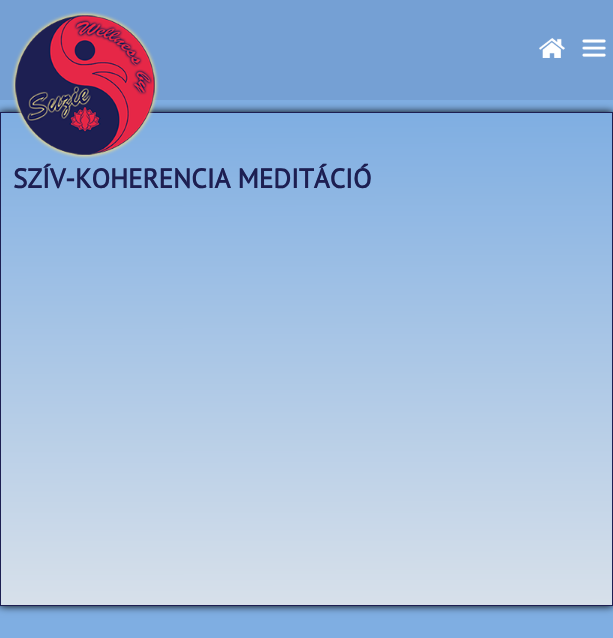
void draw(SkCanvas* canvas) {
	SkPaint paint;
	paint.setAntiAlias(true);
	canvas->clear(0xff7faee2);
	paint.setColor(0xff000000);
	paint.setMaskFilter(SkMaskFilter::MakeBlur(kNormal_SkBlurStyle, 4));
	canvas->drawRect(SkRect::MakeXYWH(0, 112, 613, 494), paint);
	paint.setMaskFilter(nullptr);
	paint.setColor(0xff75a0d4);
	canvas->drawRect(SkRect::MakeXYWH(0, 0, 613, 100), paint);
	canvas->drawImageRect(SkImages::DeferredFromEncodedData(SkData::MakeFromFileName("img1.png")), SkRect::MakeXYWH(539, 38, 26, 20), SkSamplingOptions());
	canvas->drawImageRect(SkImages::DeferredFromEncodedData(SkData::MakeFromFileName("img2.png")), SkRect::MakeXYWH(582, 39, 24, 18), SkSamplingOptions());
	{
		const SkColor colors[] = {0xff7faee2, 0xffd7e0ea};
		const float stops[] = {0, 1};
		const SkPoint ends[] = {{306, 113}, {307, 605}};
		paint.setShader(SkGradientShader::MakeLinear(ends, colors, stops, 2, SkTileMode::kClamp));
		paint.setAlpha(255);
	}
	canvas->drawRect(SkRect::MakeXYWH(1, 113, 611, 492), paint);
	paint.setStroke(true);
	paint.setStrokeWidth(1);
	paint.setShader(nullptr);
	paint.setColor(0xff1d1f52);
	canvas->drawRect(SkRect::MakeXYWH(0.5, 112.5, 612, 493), paint);
	canvas->drawImageRect(SkImages::DeferredFromEncodedData(SkData::MakeFromFileName("img3.png")), SkRect::MakeXYWH(11, 11, 148, 148), SkSamplingOptions());
	SkFont f1(fontMgr->matchFamilyStyle("PT Sans", SkFontStyle::Bold()), 27);
	f1.setSubpixel(true);
	paint.setStroke(false);
	canvas->drawString("SZÍV-KOHERENCIA MEDITÁCIÓ", 13, 188, f1, paint);
}
